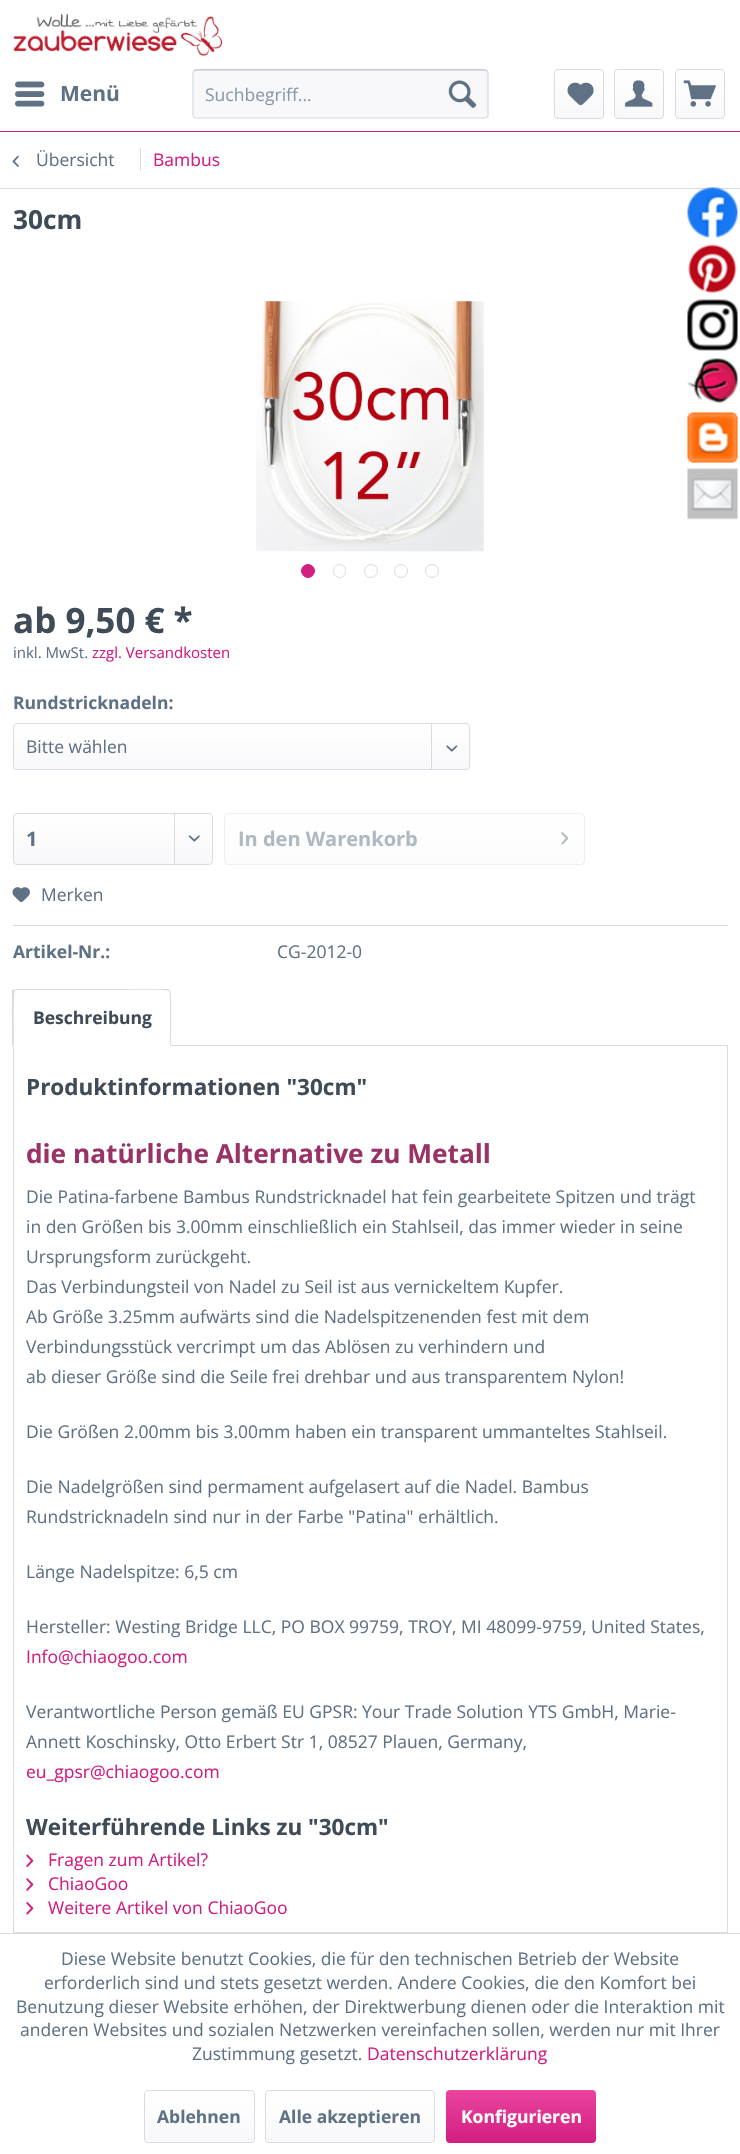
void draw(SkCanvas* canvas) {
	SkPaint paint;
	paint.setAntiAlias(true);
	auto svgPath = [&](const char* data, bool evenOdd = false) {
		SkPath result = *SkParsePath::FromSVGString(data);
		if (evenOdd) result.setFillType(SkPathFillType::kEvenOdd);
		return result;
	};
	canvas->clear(0xffffffff);
	paint.setColor(0xffd31e81);
	canvas->drawRect(SkRect::MakeXYWH(0, 131, 740, 1), paint);
	canvas->drawImageRect(SkImages::DeferredFromEncodedData(SkData::MakeFromFileName("img1.png")), SkRect::MakeXYWH(13, 13, 210, 44), SkSamplingOptions());
	canvas->drawImageRect(SkImages::DeferredFromEncodedData(SkData::MakeFromFileName("img2.png")), SkRect::MakeXYWH(15, 81, 30, 26), SkSamplingOptions());
	SkFont f1(fontMgr->matchFamilyStyle("Open Sans", SkFontStyle::Bold()), 21);
	f1.setSubpixel(true);
	paint.setColor(0xff5f7285);
	canvas->drawString("Menü", 60, 101, f1, paint);
	paint.setColor(0xfff8f8fa);
	canvas->drawRoundRect(SkRect::MakeXYWH(193, 69, 296, 50), 4, 4, paint);
	paint.setColor(0xffdadae5);
	canvas->drawPath(svgPath("M196 71H485C486 71 488 72 488 74C488 72 488 70 486 70H196C194 70 194 72 194 74C194 72 195 71 196 71Z"), paint);
	paint.setStroke(true);
	paint.setStrokeWidth(1.2);
	paint.setColor(0xffcbcbdb);
	canvas->drawPath(svgPath("M194 70.5L196 69.5H485L487 70.5"), paint);
	paint.setColor(0xffdadae5);
	canvas->drawPath(svgPath("M487 70.5L488 72.5V115L487 117L485 118H196L194 117L193 115V72.5L194 70.5"), paint);
	SkFont f2(fontMgr->matchFamilyStyle("Open Sans", SkFontStyle::Normal()), 17.5);
	f2.setSubpixel(true);
	paint.setStroke(false);
	paint.setColor(0xff8798a9);
	canvas->drawString("Suchbegriff...", 205, 101, f2, paint);
	canvas->drawImageRect(SkImages::DeferredFromEncodedData(SkData::MakeFromFileName("img3.png")), SkRect::MakeXYWH(448, 80, 29, 28), SkSamplingOptions());
	{
		const SkColor colors[] = {0xffffffff, 0xfff8f8fa};
		const float stops[] = {0, 1};
		const SkPoint ends[] = {{579, 70}, {579, 118}};
		paint.setShader(SkGradientShader::MakeLinear(ends, colors, stops, 2, SkTileMode::kClamp));
		paint.setAlpha(255);
	}
	canvas->drawRoundRect(SkRect::MakeXYWH(555, 70, 48, 48), 2.5, 2.5, paint);
	paint.setStroke(true);
	paint.setStrokeWidth(1);
	paint.setShader(nullptr);
	paint.setColor(0xffdadae5);
	canvas->drawRoundRect(SkRect::MakeXYWH(554.5, 69.5, 49, 49), 3.5, 3.5, paint);
	canvas->drawImageRect(SkImages::DeferredFromEncodedData(SkData::MakeFromFileName("img4.png")), SkRect::MakeXYWH(567, 82, 27, 24), SkSamplingOptions());
	paint.setStroke(false);
	{
		const SkColor colors[] = {0xffffffff, 0xfff8f8fa};
		const float stops[] = {0, 1};
		const SkPoint ends[] = {{639, 70}, {639, 118}};
		paint.setShader(SkGradientShader::MakeLinear(ends, colors, stops, 2, SkTileMode::kClamp));
		paint.setAlpha(255);
	}
	canvas->drawRoundRect(SkRect::MakeXYWH(615, 70, 48, 48), 2.5, 2.5, paint);
	paint.setStroke(true);
	paint.setShader(nullptr);
	paint.setColor(0xffdadae5);
	canvas->drawRoundRect(SkRect::MakeXYWH(614.5, 69.5, 49, 49), 3.5, 3.5, paint);
	canvas->drawImageRect(SkImages::DeferredFromEncodedData(SkData::MakeFromFileName("img5.png")), SkRect::MakeXYWH(625, 80, 28, 27), SkSamplingOptions());
	paint.setStroke(false);
	{
		const SkColor colors[] = {0xffffffff, 0xfff8f8fa};
		const float stops[] = {0, 1};
		const SkPoint ends[] = {{700, 70}, {700, 118}};
		paint.setShader(SkGradientShader::MakeLinear(ends, colors, stops, 2, SkTileMode::kClamp));
		paint.setAlpha(255);
	}
	canvas->drawRoundRect(SkRect::MakeXYWH(676, 70, 48, 48), 2.5, 2.5, paint);
	paint.setStroke(true);
	paint.setShader(nullptr);
	paint.setColor(0xffdadae5);
	canvas->drawRoundRect(SkRect::MakeXYWH(675.5, 69.5, 49, 49), 3.5, 3.5, paint);
	canvas->drawImageRect(SkImages::DeferredFromEncodedData(SkData::MakeFromFileName("img6.png")), SkRect::MakeXYWH(683, 80, 34, 27), SkSamplingOptions());
	paint.setStroke(false);
	canvas->drawRect(SkRect::MakeXYWH(0, 188, 740, 1), paint);
	canvas->drawImageRect(SkImages::DeferredFromEncodedData(SkData::MakeFromFileName("img7.png")), SkRect::MakeXYWH(12, 155, 7, 12), SkSamplingOptions());
	paint.setColor(0xff5f7285);
	canvas->drawString("Übersicht", 36, 166, f2, paint);
	paint.setColor(0xffdadae5);
	canvas->drawRect(SkRect::MakeXYWH(140, 148, 1, 23), paint);
	paint.setColor(0xffd31e81);
	canvas->drawString("Bambus", 153, 166, f2, paint);
	SkFont f3(fontMgr->matchFamilyStyle("Open Sans", SkFontStyle::Bold()), 26.25);
	f3.setSubpixel(true);
	paint.setColor(0xff3f4c58);
	canvas->drawString("30cm", 13, 229, f3, paint);
	canvas->drawImageRect(SkImages::DeferredFromEncodedData(SkData::MakeFromFileName("img8.png")), SkRect::MakeXYWH(256, 301, 228, 251), SkSamplingOptions());
	paint.setColor(0xffd31e81);
	canvas->drawCircle(308, 571, 6.5, paint);
	paint.setStroke(true);
	canvas->drawCircle(308, 571, 6.5, paint);
	paint.setColor(0xffdadae5);
	canvas->drawRoundRect(SkRect::MakeXYWH(333.5, 564.5, 12, 13), 6, 6, paint);
	canvas->drawCircle(371, 571, 6.5, paint);
	canvas->drawCircle(401, 571, 6.5, paint);
	canvas->drawCircle(432, 571, 6.5, paint);
	SkFont f4(fontMgr->matchFamilyStyle("Open Sans", SkFontStyle::Bold()), 35);
	f4.setSubpixel(true);
	paint.setStroke(false);
	paint.setColor(0xff3f4c58);
	canvas->drawString("ab 9,50 € *", 13, 633, f4, paint);
	SkFont f5(fontMgr->matchFamilyStyle("Open Sans", SkFontStyle::Normal()), 15);
	f5.setSubpixel(true);
	paint.setColor(0xff5f7285);
	canvas->drawString("inkl. MwSt.", 13, 658, f5, paint);
	paint.setColor(0xffd31e81);
	canvas->drawString("zzgl. Versandkosten", 92, 658, f5, paint);
	SkFont f6(fontMgr->matchFamilyStyle("Open Sans", SkFontStyle::Bold()), 17.5);
	f6.setSubpixel(true);
	paint.setColor(0xff5f7285);
	canvas->drawString("Rundstricknadeln:", 13, 709, f6, paint);
	{
		const SkColor colors[] = {0xffffffff, 0xfff8f8fa};
		const float stops[] = {0, 1};
		const SkPoint ends[] = {{241, 724}, {241, 769}};
		paint.setShader(SkGradientShader::MakeLinear(ends, colors, stops, 2, SkTileMode::kClamp));
		paint.setAlpha(255);
	}
	canvas->drawRoundRect(SkRect::MakeXYWH(14, 724, 455, 45), 2.5, 2.5, paint);
	paint.setStroke(true);
	paint.setShader(nullptr);
	paint.setColor(0xffdadae5);
	canvas->drawRoundRect(SkRect::MakeXYWH(13.5, 723.5, 456, 46), 3.5, 3.5, paint);
	paint.setStroke(false);
	paint.setColor(0xff5f7285);
	canvas->drawString("Bitte wählen", 26, 753, f2, paint);
	paint.setColor(0xffdadae5);
	canvas->drawRect(SkRect::MakeXYWH(431, 724, 1, 45), paint);
	canvas->drawImageRect(SkImages::DeferredFromEncodedData(SkData::MakeFromFileName("img9.png")), SkRect::MakeXYWH(446, 745, 12, 7), SkSamplingOptions());
	{
		const SkColor colors[] = {0xffffffff, 0xfff8f8fa};
		const float stops[] = {0, 1};
		const SkPoint ends[] = {{113, 814}, {113, 864}};
		paint.setShader(SkGradientShader::MakeLinear(ends, colors, stops, 2, SkTileMode::kClamp));
		paint.setAlpha(255);
	}
	canvas->drawRoundRect(SkRect::MakeXYWH(14, 814, 197, 50), 2.5, 2.5, paint);
	paint.setStroke(true);
	paint.setShader(nullptr);
	paint.setColor(0xffdadae5);
	canvas->drawRoundRect(SkRect::MakeXYWH(13.5, 813.5, 199, 51), 3.5, 3.5, paint);
	SkFont f7(fontMgr->matchFamilyStyle("Open Sans", SkFontStyle::Bold()), 20);
	f7.setSubpixel(true);
	paint.setStroke(false);
	paint.setColor(0xff5f7285);
	canvas->drawString("1", 26, 846, f7, paint);
	paint.setColor(0xffdadae5);
	canvas->drawRect(SkRect::MakeXYWH(174, 814, 1, 50), paint);
	canvas->drawImageRect(SkImages::DeferredFromEncodedData(SkData::MakeFromFileName("img10.png")), SkRect::MakeXYWH(188, 835, 12, 7), SkSamplingOptions());
	{
		const SkColor colors[] = {0xffffffff, 0xfffcfcfd};
		const float stops[] = {0, 1};
		const SkPoint ends[] = {{404, 814}, {404, 864}};
		paint.setShader(SkGradientShader::MakeLinear(ends, colors, stops, 2, SkTileMode::kClamp));
		paint.setAlpha(255);
	}
	canvas->drawRoundRect(SkRect::MakeXYWH(225, 814, 359, 50), 2.5, 2.5, paint);
	paint.setStroke(true);
	paint.setShader(nullptr);
	paint.setColor(0xffededf2);
	canvas->drawRoundRect(SkRect::MakeXYWH(224.5, 813.5, 360, 51), 3.5, 3.5, paint);
	paint.setStroke(false);
	paint.setColor(0xffafb9c2);
	canvas->drawString("In den Warenkorb", 238, 846, f7, paint);
	canvas->drawImageRect(SkImages::DeferredFromEncodedData(SkData::MakeFromFileName("img11.png")), SkRect::MakeXYWH(561, 832, 8, 13), SkSamplingOptions());
	paint.setColor(0xffdadae5);
	canvas->drawRect(SkRect::MakeXYWH(13, 925, 715, 1), paint);
	canvas->drawImageRect(SkImages::DeferredFromEncodedData(SkData::MakeFromFileName("img12.png")), SkRect::MakeXYWH(12, 887, 18, 16), SkSamplingOptions());
	paint.setColor(0xff5f7285);
	canvas->drawString("Merken", 41, 901, f2, paint);
	canvas->drawString("Artikel-Nr.:", 13, 958, f6, paint);
	canvas->drawString("CG-2012-0", 277, 958, f2, paint);
	paint.setStroke(true);
	paint.setColor(0xffdadae5);
	canvas->drawRect(SkRect::MakeXYWH(13.5, 1045.5, 714, 887), paint);
	paint.setStroke(false);
	paint.setColor(0xffffffff);
	canvas->drawPath(svgPath("M17 989H167C169 989 171 991 171 993V1046H13V993C13 991 15 989 17 989Z"), paint);
	paint.setColor(0xffdadae5);
	canvas->drawPath(svgPath("M16 989L13 990L15 991L16 990H117C121 990 168 989 169 991L170 990L168 989Z"), paint);
	canvas->drawPath(svgPath("M171 1046C171 1040 172 992 170 990L169 991C171 992 170 1039 170 1045Z"), paint);
	paint.setColor(0xffffffff);
	canvas->drawPath(svgPath("M171 1046L170 1045H14L13 1046Z"), paint);
	paint.setColor(0xffdadae5);
	canvas->drawPath(svgPath("M12 990H13L15 991C13 992 14 1039 14 1045L12 1046Z"), paint);
	paint.setColor(0xff3f4c58);
	canvas->drawString("Beschreibung", 33, 1024, f6, paint);
	SkFont f8(fontMgr->matchFamilyStyle("Open Sans", SkFontStyle::Bold()), 22.5);
	f8.setSubpixel(true);
	canvas->drawString("Produktinformationen \"30cm\"", 26, 1095, f8, paint);
	paint.setColor(0xff993366);
	canvas->drawString("die natürliche Alternative zu Metall", 26, 1163, f3, paint);
	paint.setColor(0xff5f7285);
	canvas->drawString("Die Patina-farbene Bambus Rundstricknadel hat fein gearbeitete Spitzen und trägt", 26, 1203, f2, paint);
	canvas->drawString("in den Größen bis 3.00mm einschließlich ein Stahlseil, das immer wieder in seine", 26, 1233, f2, paint);
	canvas->drawString("Ursprungsform zurückgeht.", 26, 1263, f2, paint);
	canvas->drawString("Das Verbindungsteil von Nadel zu Seil ist aus vernickeltem Kupfer.", 26, 1293, f2, paint);
	canvas->drawString("Ab Größe 3.25mm aufwärts sind die Nadelspitzenenden fest mit dem", 26, 1323, f2, paint);
	canvas->drawString("Verbindungsstück vercrimpt um das Ablösen zu verhindern und", 26, 1353, f2, paint);
	canvas->drawString("ab dieser Größe sind die Seile frei drehbar und aus transparentem Nylon!", 26, 1383, f2, paint);
	canvas->drawString("Die Größen 2.00mm bis 3.00mm haben ein transparent ummanteltes Stahlseil.", 26, 1438, f2, paint);
	canvas->drawString("Die Nadelgrößen sind permament aufgelasert auf die Nadel. Bambus", 26, 1493, f2, paint);
	canvas->drawString("Rundstricknadeln sind nur in der Farbe \"Patina\" erhältlich.", 26, 1523, f2, paint);
	canvas->drawString("Länge Nadelspitze: 6,5 cm", 26, 1578, f2, paint);
	canvas->drawString("Hersteller: Westing Bridge LLC, PO BOX 99759, TROY, MI 48099-9759, United States,", 26, 1633, f2, paint);
	paint.setColor(0xffd31e81);
	canvas->drawString("Info@chiaogoo.com", 26, 1663, f2, paint);
	paint.setColor(0xff5f7285);
	canvas->drawString("Verantwortliche Person gemäß EU GPSR: Your Trade Solution YTS GmbH, Marie-", 26, 1718, f2, paint);
	canvas->drawString("Annett Koschinsky, Otto Erbert Str 1, 08527 Plauen, Germany,", 26, 1748, f2, paint);
	paint.setColor(0xffd31e81);
	canvas->drawString("eu_gpsr@chiaogoo.com", 26, 1778, f2, paint);
	paint.setColor(0xff3f4c58);
	canvas->drawString("Weiterführende Links zu \"30cm\"", 26, 1835, f8, paint);
	canvas->drawImageRect(SkImages::DeferredFromEncodedData(SkData::MakeFromFileName("img13.png")), SkRect::MakeXYWH(26, 1854, 8, 13), SkSamplingOptions());
	paint.setColor(0xffd31e81);
	canvas->drawString("Fragen zum Artikel?", 48, 1866, f2, paint);
	canvas->drawImageRect(SkImages::DeferredFromEncodedData(SkData::MakeFromFileName("img14.png")), SkRect::MakeXYWH(26, 1878, 8, 13), SkSamplingOptions());
	canvas->drawString("ChiaoGoo", 48, 1890, f2, paint);
	canvas->drawImageRect(SkImages::DeferredFromEncodedData(SkData::MakeFromFileName("img15.png")), SkRect::MakeXYWH(26, 1902, 8, 13), SkSamplingOptions());
	canvas->drawString("Weitere Artikel von ChiaoGoo", 48, 1914, f2, paint);
	canvas->drawImageRect(SkImages::DeferredFromEncodedData(SkData::MakeFromFileName("img16.png")), SkRect::MakeXYWH(687, 187, 51, 51), SkSamplingOptions());
	canvas->drawImageRect(SkImages::DeferredFromEncodedData(SkData::MakeFromFileName("img17.png")), SkRect::MakeXYWH(688, 244, 49, 50), SkSamplingOptions());
	canvas->drawImageRect(SkImages::DeferredFromEncodedData(SkData::MakeFromFileName("img18.png")), SkRect::MakeXYWH(687, 299, 51, 52), SkSamplingOptions());
	canvas->drawImageRect(SkImages::DeferredFromEncodedData(SkData::MakeFromFileName("img19.png")), SkRect::MakeXYWH(687, 358, 51, 46), SkSamplingOptions());
	canvas->drawImageRect(SkImages::DeferredFromEncodedData(SkData::MakeFromFileName("img20.png")), SkRect::MakeXYWH(687, 412, 51, 51), SkSamplingOptions());
	canvas->drawImageRect(SkImages::DeferredFromEncodedData(SkData::MakeFromFileName("img21.png")), SkRect::MakeXYWH(687, 468, 51, 52), SkSamplingOptions());
	paint.setColor(0xffdadae5);
	canvas->drawRect(SkRect::MakeXYWH(0, 1933, 740, 1), paint);
	paint.setColor(0xff5f7285);
	canvas->drawString("Diese Website benutzt Cookies, die für den technischen Betrieb der Website", 61, 1965, f2, paint);
	canvas->drawString("erforderlich sind und stets gesetzt werden. Andere Cookies, die den Komfort bei", 44, 1989, f2, paint);
	canvas->drawString("Benutzung dieser Website erhöhen, der Direktwerbung dienen oder die Interaktion mit", 16, 2013, f2, paint);
	canvas->drawString("anderen Websites und sozialen Netzwerken vereinfachen sollen, werden nur mit Ihrer", 20, 2036, f2, paint);
	canvas->drawString("Zustimmung gesetzt.", 192, 2060, f2, paint);
	paint.setColor(0xffd31e81);
	canvas->drawString("Datenschutzerklärung", 367, 2060, f2, paint);
	{
		const SkColor colors[] = {0xffffffff, 0xfff8f8fa};
		const float stops[] = {0, 1};
		const SkPoint ends[] = {{199, 2091}, {199, 2141}};
		paint.setShader(SkGradientShader::MakeLinear(ends, colors, stops, 2, SkTileMode::kClamp));
		paint.setAlpha(255);
	}
	canvas->drawRoundRect(SkRect::MakeXYWH(145, 2091, 109, 50), 2.5, 2.5, paint);
	paint.setStroke(true);
	paint.setShader(nullptr);
	paint.setColor(0xffdadae5);
	canvas->drawRoundRect(SkRect::MakeXYWH(144.5, 2090.5, 110, 52), 3.5, 3.5, paint);
	paint.setStroke(false);
	paint.setColor(0xff5f7285);
	canvas->drawString("Ablehnen", 157, 2123, f6, paint);
	{
		const SkColor colors[] = {0xffffffff, 0xfff8f8fa};
		const float stops[] = {0, 1};
		const SkPoint ends[] = {{350, 2091}, {350, 2141}};
		paint.setShader(SkGradientShader::MakeLinear(ends, colors, stops, 2, SkTileMode::kClamp));
		paint.setAlpha(255);
	}
	canvas->drawRoundRect(SkRect::MakeXYWH(266, 2091, 168, 50), 2.5, 2.5, paint);
	paint.setStroke(true);
	paint.setShader(nullptr);
	paint.setColor(0xffdadae5);
	canvas->drawRoundRect(SkRect::MakeXYWH(265.5, 2090.5, 169, 52), 3.5, 3.5, paint);
	paint.setStroke(false);
	paint.setColor(0xff5f7285);
	canvas->drawString("Alle akzeptieren", 279, 2123, f6, paint);
	{
		const SkColor colors[] = {0xffea449f, 0xffd31e81};
		const float stops[] = {0, 1};
		const SkPoint ends[] = {{521, 2090}, {521, 2143}};
		paint.setShader(SkGradientShader::MakeLinear(ends, colors, stops, 2, SkTileMode::kClamp));
		paint.setAlpha(255);
	}
	canvas->drawRoundRect(SkRect::MakeXYWH(446, 2090, 150, 53), 4, 4, paint);
	paint.setShader(nullptr);
	paint.setColor(0xffffffff);
	canvas->drawString("Konfigurieren", 461, 2123, f6, paint);
}
